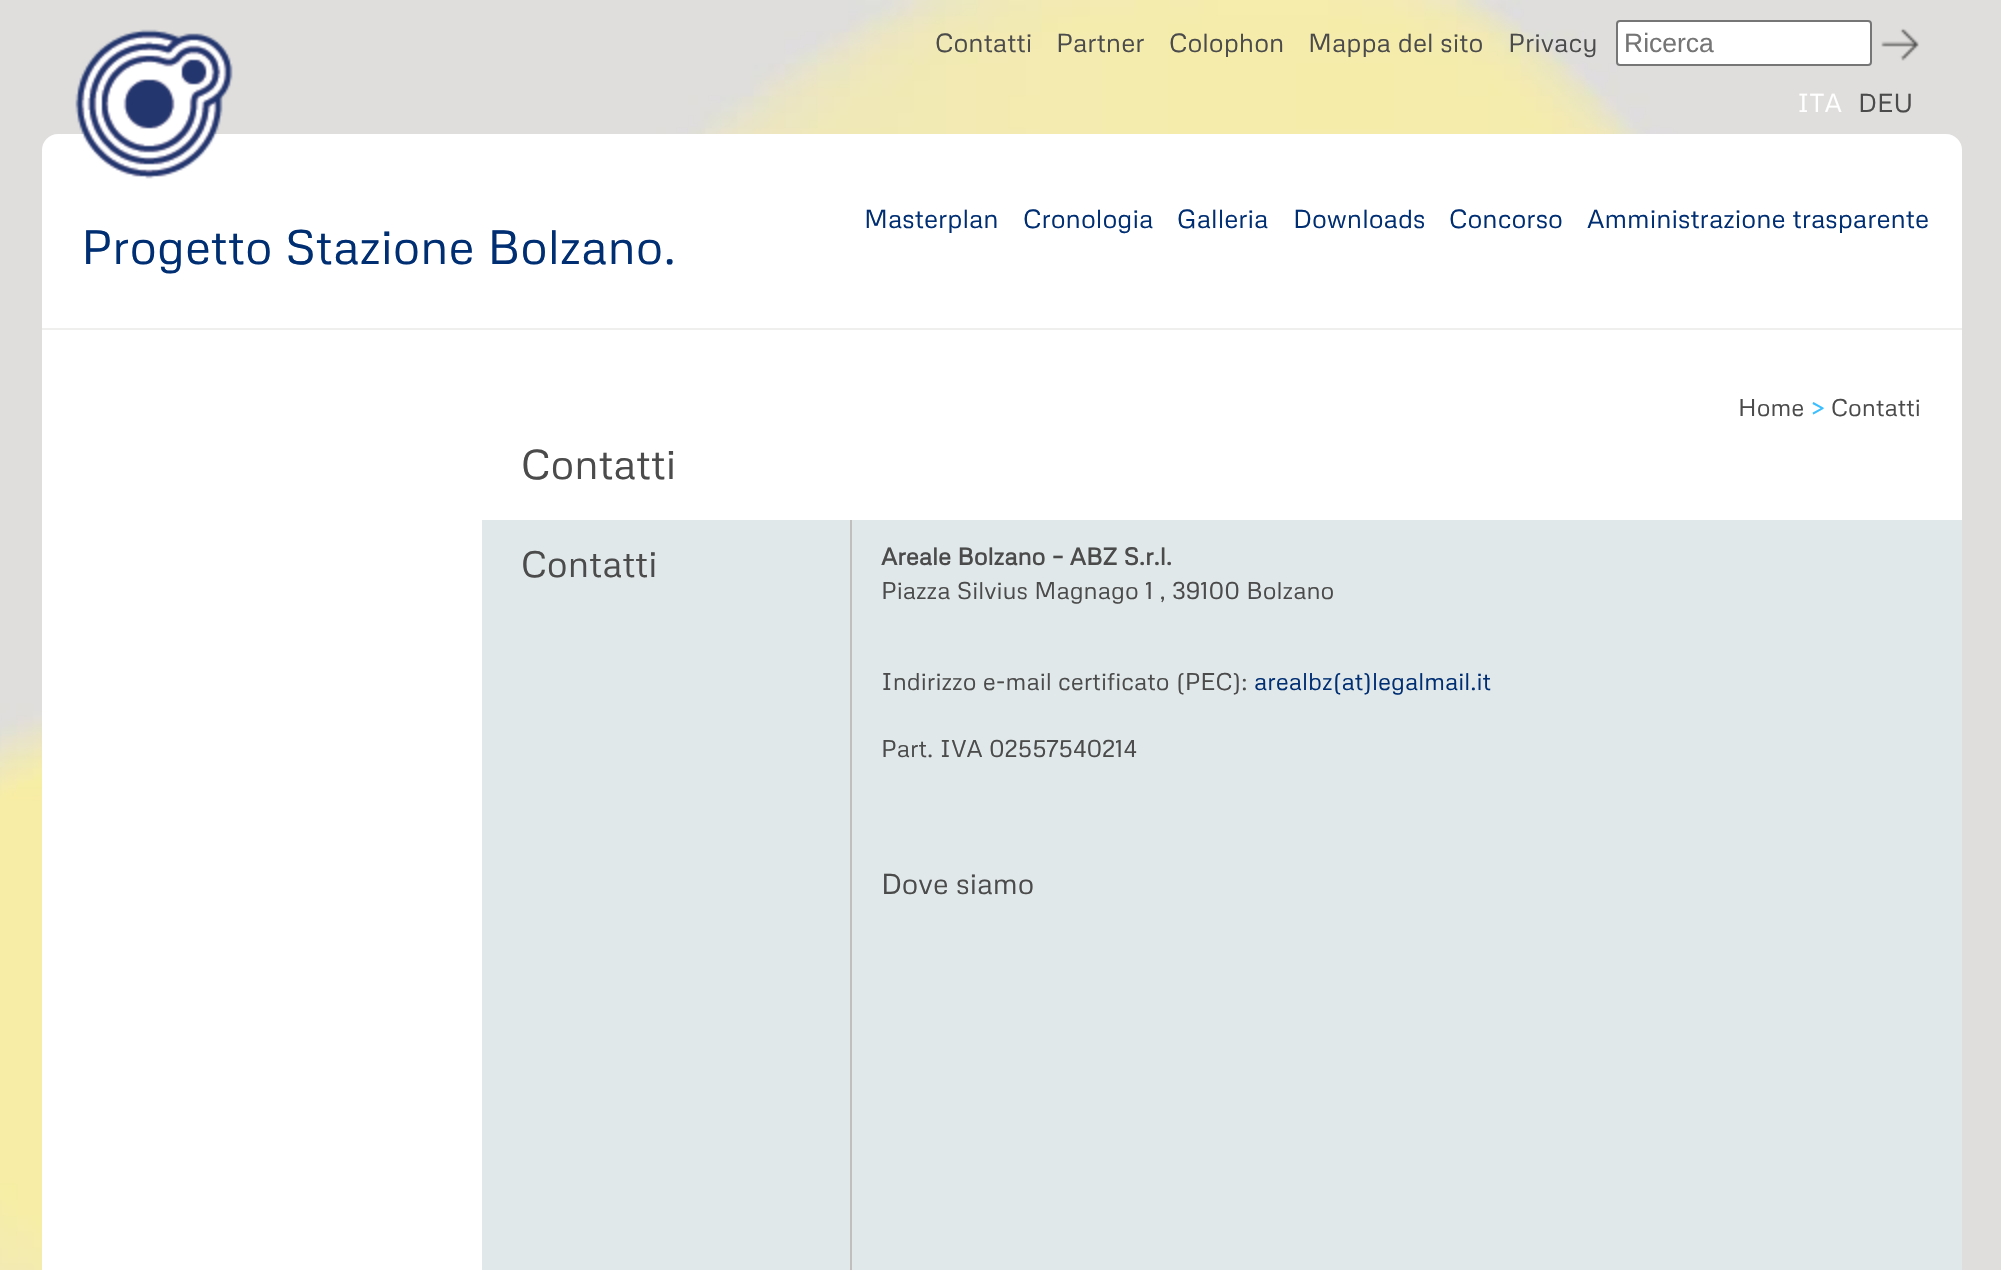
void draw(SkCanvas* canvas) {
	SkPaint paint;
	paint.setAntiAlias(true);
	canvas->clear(0xffdfdedc);
	canvas->drawImageRect(SkImages::DeferredFromEncodedData(SkData::MakeFromFileName("img1.png")), SkRect::MakeXYWH(0, 0, 1846, 1270), SkSamplingOptions());
	SkFont f1(fontMgr->matchFamilyStyle("Metrophobic", SkFontStyle::Normal()), 26);
	f1.setSubpixel(true);
	paint.setColor(0xff4b4b4b);
	canvas->drawString("Contatti", 935, 52, f1, paint);
	canvas->drawString("Partner", 1056, 52, f1, paint);
	canvas->drawString("Colophon", 1169, 52, f1, paint);
	canvas->drawString("Mappa del sito", 1308, 52, f1, paint);
	canvas->drawString("Privacy", 1508, 52, f1, paint);
	paint.setColor(0xffffffff);
	canvas->drawRoundRect(SkRect::MakeXYWH(1617, 21, 254, 44), 3, 3, paint);
	paint.setStroke(true);
	paint.setStrokeWidth(2);
	paint.setColor(0xff767676);
	canvas->drawRoundRect(SkRect::MakeXYWH(1617, 21, 254, 44), 3, 3, paint);
	SkFont f2(fontMgr->matchFamilyStyle("Liberation Sans", SkFontStyle::Normal()), 26.5);
	f2.setSubpixel(true);
	paint.setStroke(false);
	paint.setColor(0xff757575);
	canvas->drawString("Ricerca", 1624, 52, f2, paint);
	canvas->drawImageRect(SkImages::DeferredFromEncodedData(SkData::MakeFromFileName("img2.png")), SkRect::MakeXYWH(1881, 28, 38, 33), SkSamplingOptions());
	paint.setColor(0xffffffff);
	canvas->drawString("ITA", 1797, 112, f1, paint);
	paint.setColor(0xff4b4b4b);
	canvas->drawString("DEU", 1858, 112, f1, paint);
	paint.setColor(0xffffffff);
	canvas->drawRoundRect(SkRect::MakeXYWH(42, 134, 1920, 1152), 16, 16, paint);
	paint.setColor(0xffefefee);
	canvas->drawRect(SkRect::MakeXYWH(42, 328, 1920, 2), paint);
	canvas->drawImageRect(SkImages::DeferredFromEncodedData(SkData::MakeFromFileName("img3.png")), SkRect::MakeXYWH(75, 29, 158, 150), SkSamplingOptions());
	paint.setColor(0xff002e72);
	canvas->drawString("Masterplan", 864, 228, f1, paint);
	canvas->drawString("Cronologia", 1023, 228, f1, paint);
	canvas->drawString("Galleria", 1177, 228, f1, paint);
	canvas->drawString("Downloads", 1293, 228, f1, paint);
	canvas->drawString("Concorso", 1449, 228, f1, paint);
	canvas->drawString("Amministrazione trasparente", 1587, 228, f1, paint);
	SkFont f3(fontMgr->matchFamilyStyle("Metrophobic", SkFontStyle::Normal()), 48);
	f3.setSubpixel(true);
	canvas->drawString("Progetto Stazione Bolzano.", 81, 264, f3, paint);
	SkFont f4(fontMgr->matchFamilyStyle("Metrophobic", SkFontStyle::Normal()), 24);
	f4.setSubpixel(true);
	paint.setColor(0xff4b4b4b);
	canvas->drawString("Home", 1738, 416, f4, paint);
	paint.setColor(0xff39beff);
	canvas->drawString(">", 1811, 416, f4, paint);
	paint.setColor(0xff4b4b4b);
	canvas->drawString("Contatti", 1831, 416, f4, paint);
	SkFont f5(fontMgr->matchFamilyStyle("Metrophobic", SkFontStyle::Normal()), 41.5);
	f5.setSubpixel(true);
	canvas->drawString("Contatti", 521, 479, f5, paint);
	paint.setColor(0xffe1e8ea);
	canvas->drawRect(SkRect::MakeXYWH(482, 520, 1480, 750), paint);
	SkFont f6(fontMgr->matchFamilyStyle("Metrophobic", SkFontStyle::Normal()), 36.5);
	f6.setSubpixel(true);
	paint.setColor(0xff4b4b4b);
	canvas->drawString("Contatti", 521, 577, f6, paint);
	paint.setColor(0xffc0bfbd);
	canvas->drawRect(SkRect::MakeXYWH(850, 520, 2, 750), paint);
	SkFont f7(fontMgr->matchFamilyStyle("Metrophobic", SkFontStyle::Bold()), 24);
	f7.setSubpixel(true);
	paint.setColor(0xff4b4b4b);
	canvas->drawString("Areale Bolzano – ABZ S.r.l.", 881, 565, f7, paint);
	canvas->drawString("Piazza Silvius Magnago 1 , 39100 Bolzano", 881, 599, f4, paint);
	canvas->drawString("Indirizzo e-mail certificato (PEC):", 881, 690, f4, paint);
	paint.setColor(0xff002e72);
	canvas->drawString("arealbz(at)legalmail.it", 1254, 690, f4, paint);
	paint.setColor(0xff4b4b4b);
	canvas->drawString("Part. IVA 02557540214", 881, 757, f4, paint);
	SkFont f8(fontMgr->matchFamilyStyle("Metrophobic", SkFontStyle::Normal()), 28.75);
	f8.setSubpixel(true);
	canvas->drawString("Dove siamo", 881, 894, f8, paint);
}
